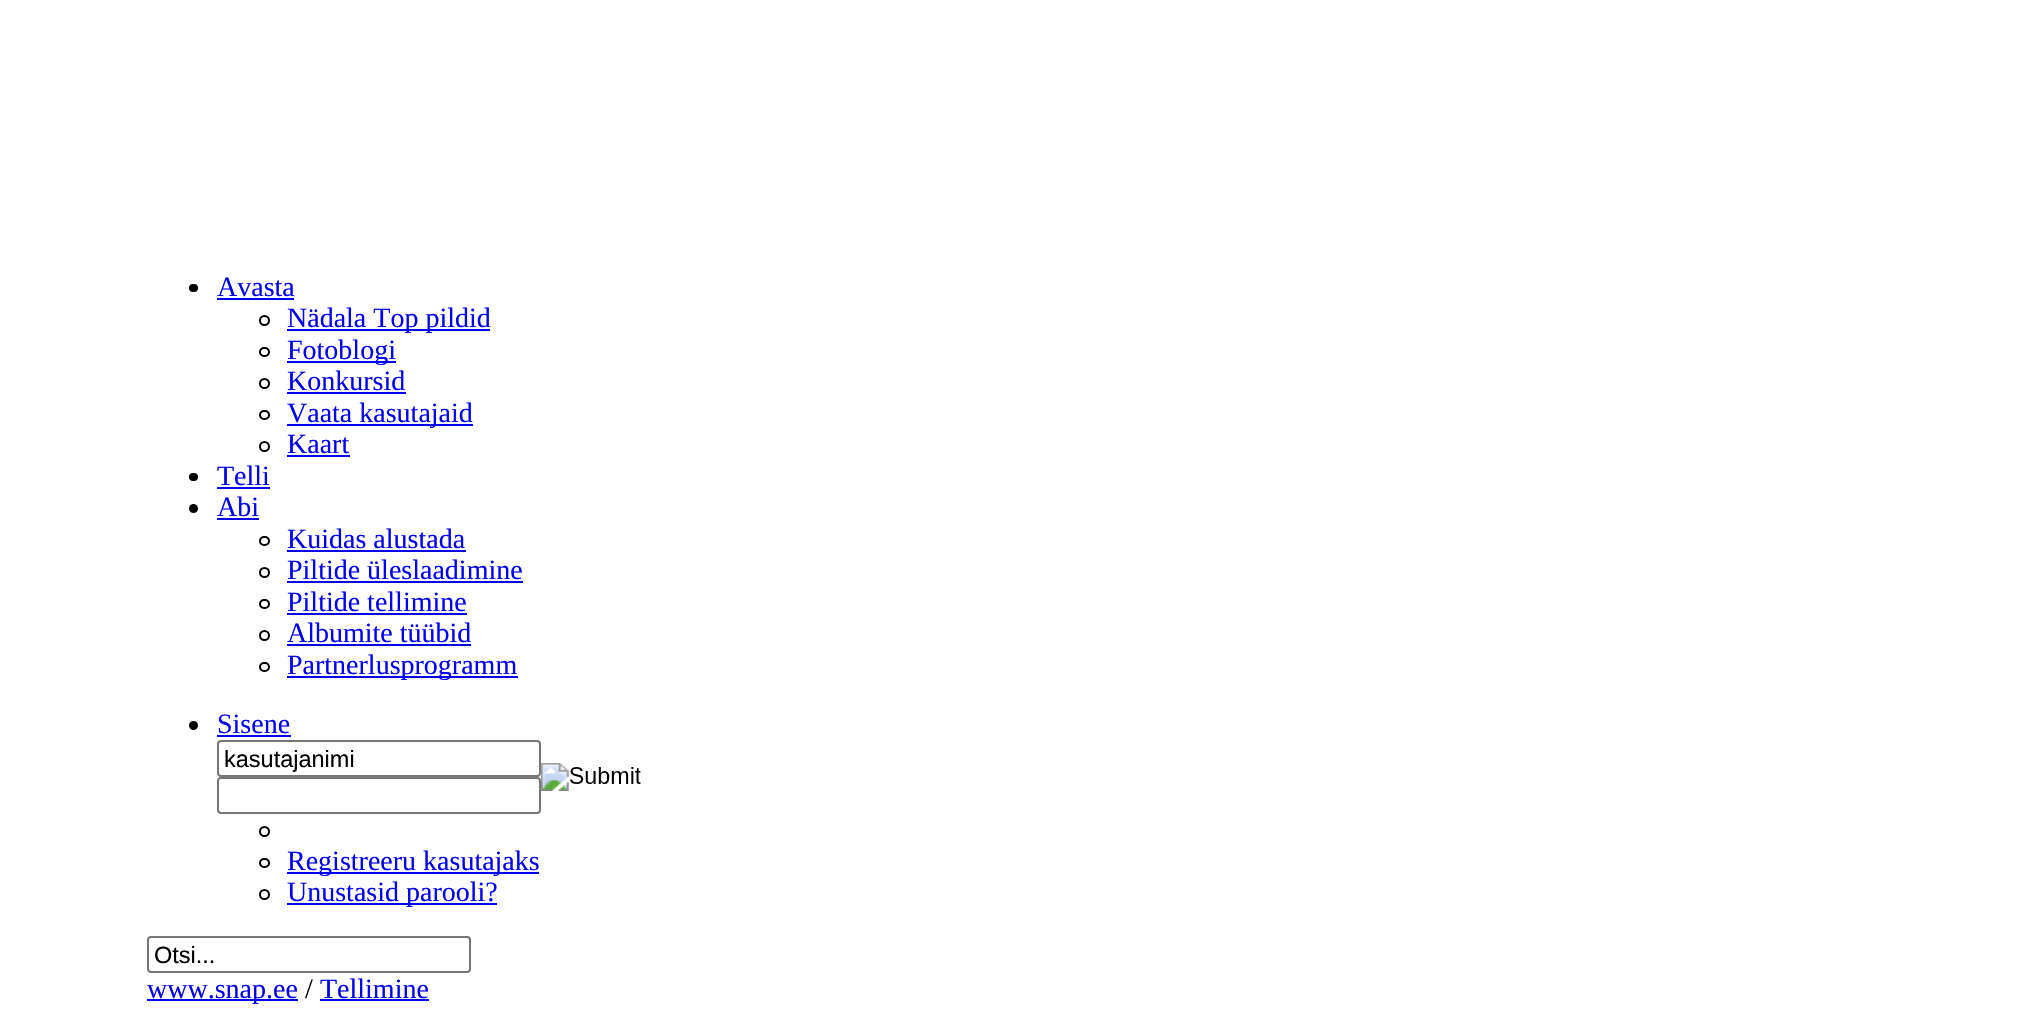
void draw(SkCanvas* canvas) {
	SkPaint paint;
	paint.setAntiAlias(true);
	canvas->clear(0xffffffff);
	paint.setColor(0xff000000);
	canvas->drawRoundRect(SkRect::MakeXYWH(189, 284, 9, 8), 4, 4, paint);
	SkFont f1(fontMgr->matchFamilyStyle("Liberation Serif", SkFontStyle::Normal()), 28);
	f1.setSubpixel(true);
	paint.setColor(0xff0000ee);
	canvas->drawString("Avasta", 217, 296, f1, paint);
	canvas->drawRect(SkRect::MakeXYWH(217, 298, 77, 2), paint);
	paint.setStroke(true);
	paint.setStrokeWidth(2);
	paint.setColor(0xff000000);
	canvas->drawCircle(264.5, 320.5, 4.5, paint);
	paint.setStroke(false);
	paint.setColor(0xff0000ee);
	canvas->drawRect(SkRect::MakeXYWH(287, 329, 203, 2), paint);
	canvas->drawString("Nädala Top pildid", 287, 327, f1, paint);
	paint.setStroke(true);
	paint.setColor(0xff000000);
	canvas->drawRoundRect(SkRect::MakeXYWH(260, 348, 9, 8), 4, 4, paint);
	paint.setStroke(false);
	paint.setColor(0xff0000ee);
	canvas->drawRect(SkRect::MakeXYWH(287, 361, 109, 2), paint);
	canvas->drawString("Fotoblogi", 287, 359, f1, paint);
	paint.setStroke(true);
	paint.setColor(0xff000000);
	canvas->drawCircle(264.5, 383.5, 4.5, paint);
	paint.setStroke(false);
	paint.setColor(0xff0000ee);
	canvas->drawString("Konkursid", 287, 390, f1, paint);
	canvas->drawRect(SkRect::MakeXYWH(287, 392, 119, 2), paint);
	paint.setStroke(true);
	paint.setColor(0xff000000);
	canvas->drawRoundRect(SkRect::MakeXYWH(260, 411, 9, 8), 4, 4, paint);
	paint.setStroke(false);
	paint.setColor(0xff0000ee);
	canvas->drawRect(SkRect::MakeXYWH(287, 424, 186, 2), paint);
	canvas->drawString("Vaata kasutajaid", 287, 422, f1, paint);
	paint.setStroke(true);
	paint.setColor(0xff000000);
	canvas->drawCircle(264.5, 446.5, 4.5, paint);
	paint.setStroke(false);
	paint.setColor(0xff0000ee);
	canvas->drawString("Kaart", 287, 453, f1, paint);
	canvas->drawRect(SkRect::MakeXYWH(287, 455, 63, 2), paint);
	paint.setColor(0xff000000);
	canvas->drawRoundRect(SkRect::MakeXYWH(189, 473, 9, 8), 4, 4, paint);
	paint.setColor(0xff0000ee);
	canvas->drawString("Telli", 217, 485, f1, paint);
	canvas->drawRect(SkRect::MakeXYWH(217, 487, 53, 2), paint);
	paint.setColor(0xff000000);
	canvas->drawCircle(193.5, 508.5, 4.5, paint);
	paint.setColor(0xff0000ee);
	canvas->drawString("Abi", 217, 516, f1, paint);
	canvas->drawRect(SkRect::MakeXYWH(217, 518, 42, 2), paint);
	paint.setStroke(true);
	paint.setColor(0xff000000);
	canvas->drawRoundRect(SkRect::MakeXYWH(260, 537, 9, 8), 4, 4, paint);
	paint.setStroke(false);
	paint.setColor(0xff0000ee);
	canvas->drawString("Kuidas alustada", 287, 548, f1, paint);
	canvas->drawRect(SkRect::MakeXYWH(287, 550, 179, 2), paint);
	paint.setStroke(true);
	paint.setColor(0xff000000);
	canvas->drawCircle(264.5, 572.5, 4.5, paint);
	paint.setStroke(false);
	paint.setColor(0xff0000ee);
	canvas->drawString("Piltide üleslaadimine", 287, 579, f1, paint);
	canvas->drawRect(SkRect::MakeXYWH(287, 581, 236, 2), paint);
	paint.setStroke(true);
	paint.setColor(0xff000000);
	canvas->drawRoundRect(SkRect::MakeXYWH(260, 600, 9, 8), 4, 4, paint);
	paint.setStroke(false);
	paint.setColor(0xff0000ee);
	canvas->drawString("Piltide tellimine", 287, 611, f1, paint);
	canvas->drawRect(SkRect::MakeXYWH(287, 613, 180, 2), paint);
	paint.setStroke(true);
	paint.setColor(0xff000000);
	canvas->drawCircle(264.5, 635.5, 4.5, paint);
	paint.setStroke(false);
	paint.setColor(0xff0000ee);
	canvas->drawString("Albumite tüübid", 287, 642, f1, paint);
	canvas->drawRect(SkRect::MakeXYWH(287, 644, 184, 2), paint);
	paint.setStroke(true);
	paint.setColor(0xff000000);
	canvas->drawRoundRect(SkRect::MakeXYWH(260, 663, 9, 8), 4, 4, paint);
	paint.setStroke(false);
	paint.setColor(0xff0000ee);
	canvas->drawRect(SkRect::MakeXYWH(287, 676, 231, 2), paint);
	canvas->drawString("Partnerlusprogramm", 287, 674, f1, paint);
	paint.setColor(0xff000000);
	canvas->drawCircle(193.5, 725.5, 4.5, paint);
	paint.setColor(0xff0000ee);
	canvas->drawString("Sisene", 217, 733, f1, paint);
	canvas->drawRect(SkRect::MakeXYWH(217, 735, 74, 2), paint);
	paint.setStroke(true);
	paint.setColor(0xff767676);
	canvas->drawRoundRect(SkRect::MakeXYWH(218, 741, 322, 35), 3, 3, paint);
	SkFont f2(fontMgr->matchFamilyStyle("Liberation Sans", SkFontStyle::Normal()), 23.5);
	f2.setSubpixel(true);
	paint.setStroke(false);
	paint.setColor(0xff000000);
	canvas->drawString("kasutajanimi", 224, 767, f2, paint);
	canvas->drawImageRect(SkImages::DeferredFromEncodedData(SkData::MakeFromFileName("img1.png")), SkRect::MakeXYWH(540, 763, 101, 28), SkSamplingOptions());
	paint.setColor(0xffffffff);
	canvas->drawRoundRect(SkRect::MakeXYWH(218, 778, 322, 35), 3, 3, paint);
	paint.setStroke(true);
	paint.setColor(0xff767676);
	canvas->drawRoundRect(SkRect::MakeXYWH(218, 778, 322, 35), 3, 3, paint);
	paint.setColor(0xff000000);
	canvas->drawCircle(264.5, 831.5, 4.5, paint);
	canvas->drawRoundRect(SkRect::MakeXYWH(260, 859, 9, 8), 4, 4, paint);
	paint.setStroke(false);
	paint.setColor(0xff0000ee);
	canvas->drawRect(SkRect::MakeXYWH(287, 872, 252, 2), paint);
	canvas->drawString("Registreeru kasutajaks", 287, 870, f1, paint);
	paint.setStroke(true);
	paint.setColor(0xff000000);
	canvas->drawCircle(264.5, 894.5, 4.5, paint);
	paint.setStroke(false);
	paint.setColor(0xff0000ee);
	canvas->drawRect(SkRect::MakeXYWH(287, 903, 210, 2), paint);
	canvas->drawString("Unustasid parooli?", 287, 901, f1, paint);
	paint.setStroke(true);
	paint.setColor(0xff767676);
	canvas->drawRoundRect(SkRect::MakeXYWH(148, 937, 322, 35), 3, 3, paint);
	paint.setStroke(false);
	paint.setColor(0xff000000);
	canvas->drawString("Otsi...", 154, 963, f2, paint);
	paint.setColor(0xff0000ee);
	canvas->drawRect(SkRect::MakeXYWH(147, 999, 151, 2), paint);
	canvas->drawString("www.snap.ee", 147, 998, f1, paint);
	paint.setColor(0xff000000);
	canvas->drawString("/", 305, 998, f1, paint);
	paint.setColor(0xff0000ee);
	canvas->drawString("Tellimine", 320, 998, f1, paint);
	canvas->drawRect(SkRect::MakeXYWH(320, 999, 109, 2), paint);
}
